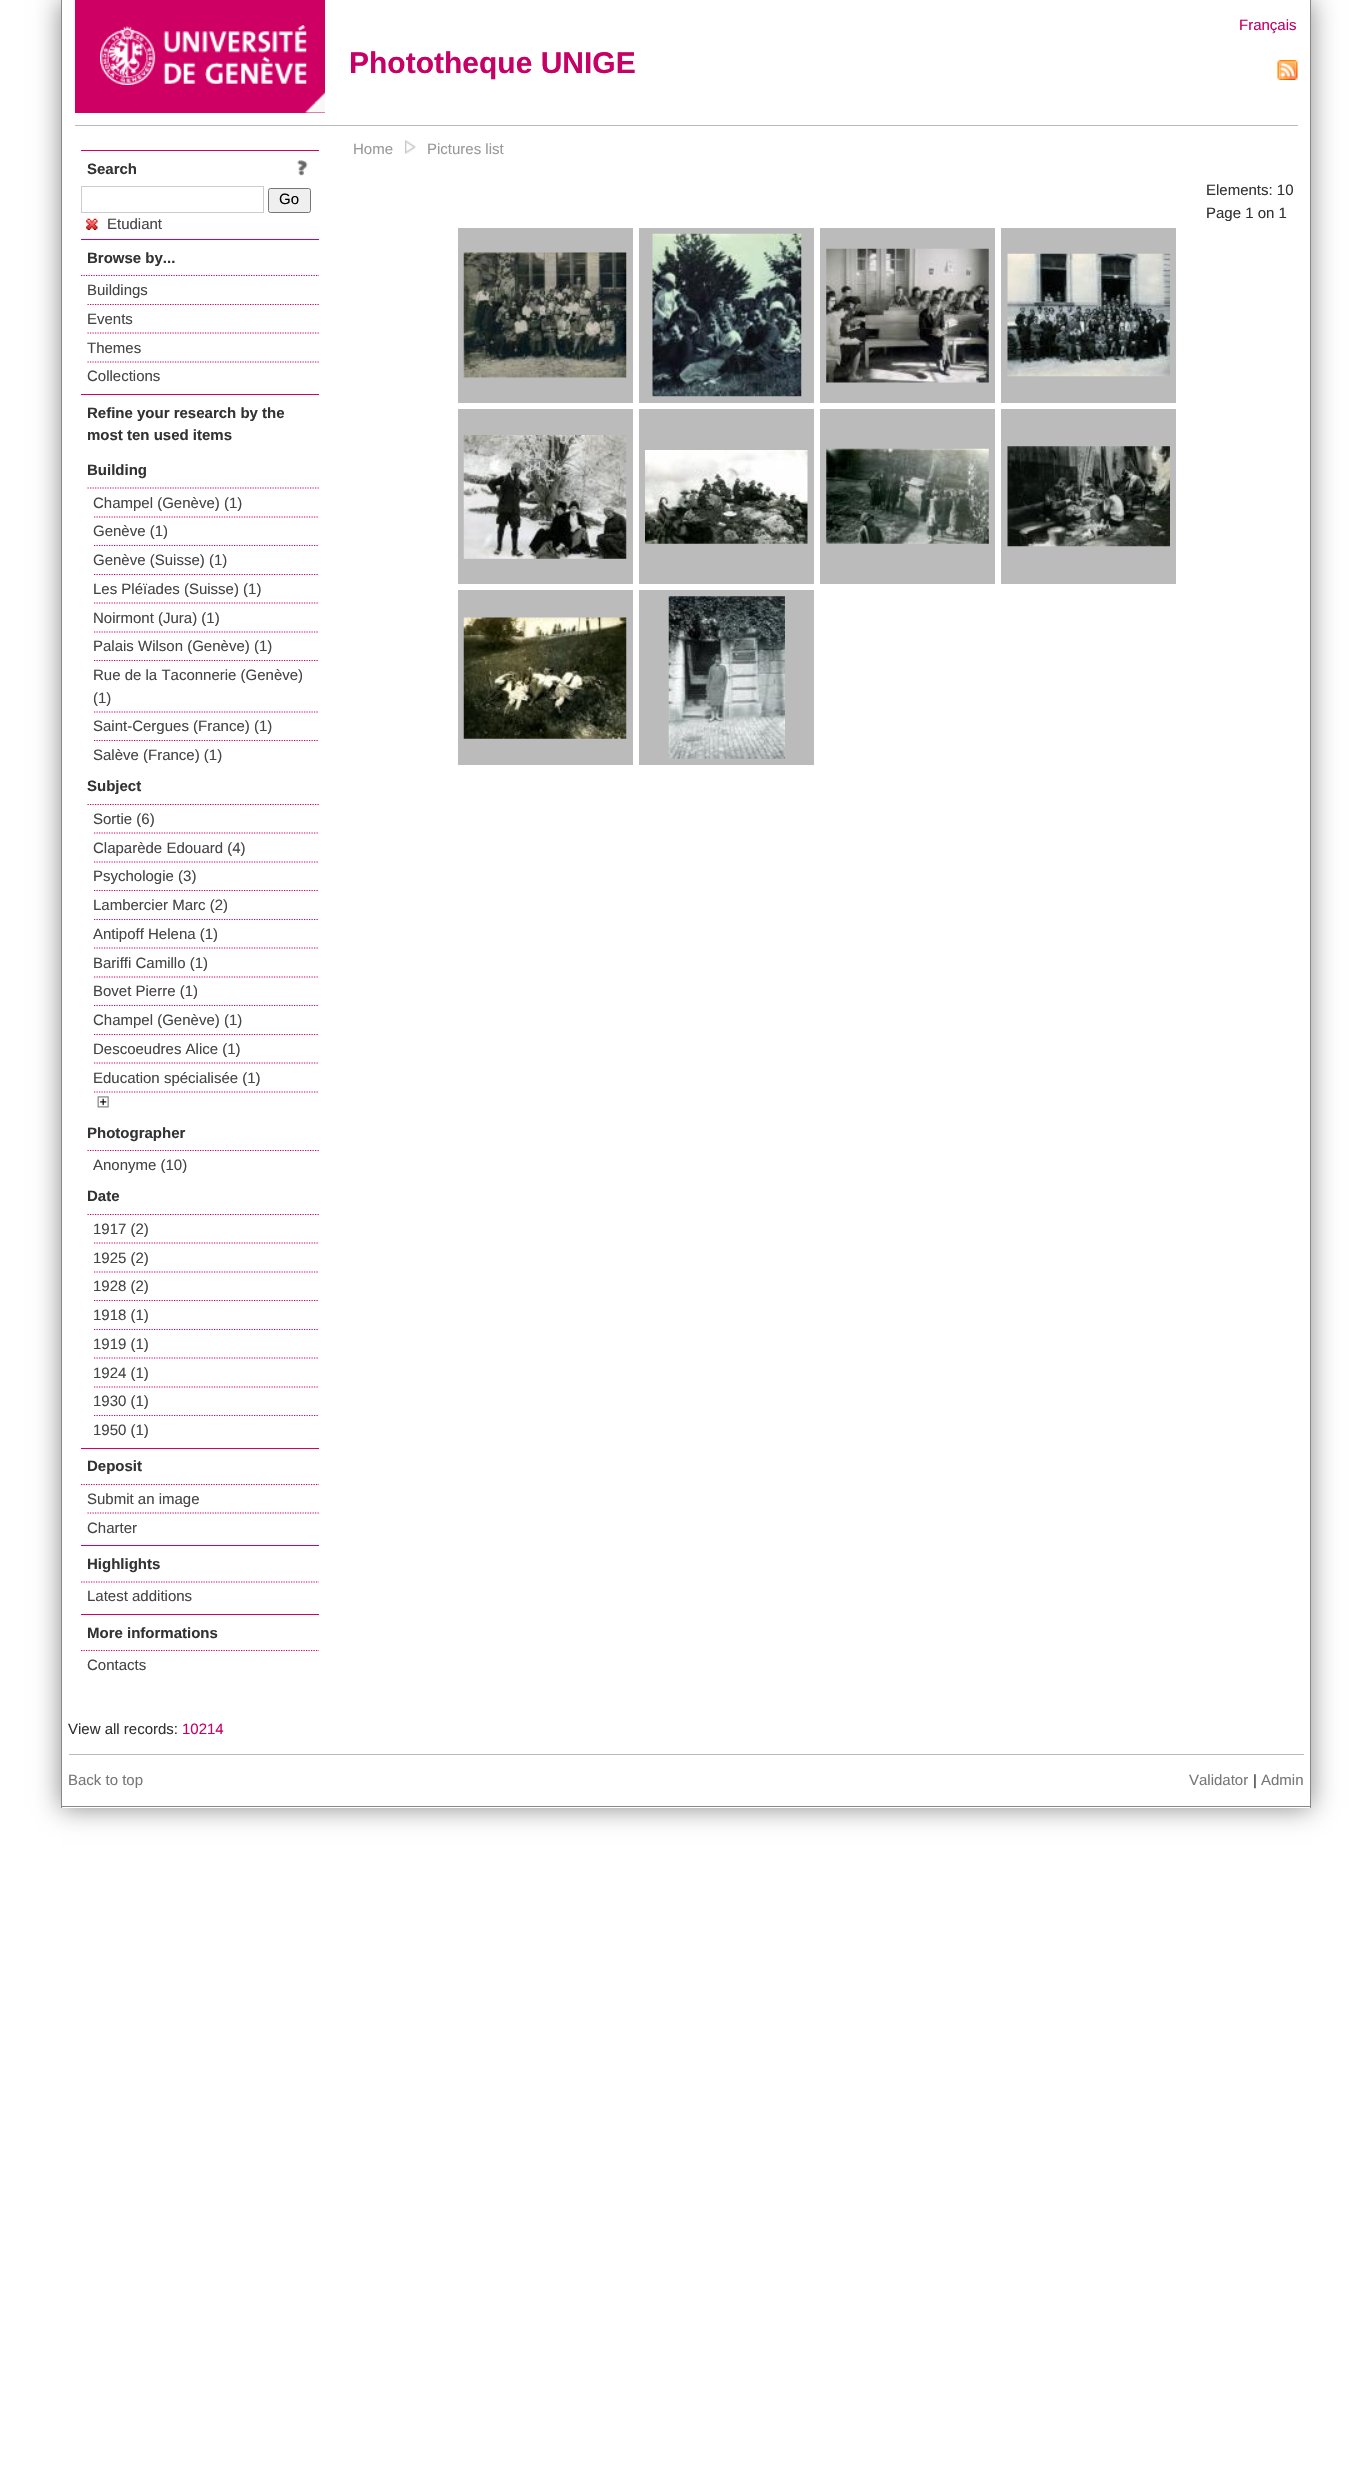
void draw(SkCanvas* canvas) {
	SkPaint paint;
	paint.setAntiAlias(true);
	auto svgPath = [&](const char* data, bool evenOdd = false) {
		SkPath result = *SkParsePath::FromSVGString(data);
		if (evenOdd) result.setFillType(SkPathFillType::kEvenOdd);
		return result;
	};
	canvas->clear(0xffffffff);
	paint.setColor(0xff888888);
	paint.setMaskFilter(SkMaskFilter::MakeBlur(kNormal_SkBlurStyle, 12.5));
	canvas->drawRect(SkRect::MakeXYWH(61, 0, 1250, 1808), paint);
	paint.setMaskFilter(nullptr);
	paint.setColor(0xffffffff);
	canvas->drawRect(SkRect::MakeXYWH(62, 0, 1248, 1808), paint);
	paint.setColor(0xff888888);
	canvas->drawRect(SkRect::MakeXYWH(1310, 0, 1, 1808), paint);
	canvas->drawRect(SkRect::MakeXYWH(61, 0, 1, 1698), paint);
	paint.setColor(0xffcf0063);
	canvas->drawRect(SkRect::MakeXYWH(75, 0, 250, 113), paint);
	canvas->drawImageRect(SkImages::DeferredFromEncodedData(SkData::MakeFromFileName("img1.png")), SkRect::MakeXYWH(305, 92, 20, 21), SkSamplingOptions());
	canvas->drawImageRect(SkImages::DeferredFromEncodedData(SkData::MakeFromFileName("img2.png")), SkRect::MakeXYWH(100, 25, 207, 60), SkSamplingOptions());
	SkFont f1(fontMgr->matchFamilyStyle("Liberation Sans", SkFontStyle::Normal()), 15);
	f1.setSubpixel(true);
	paint.setColor(0xffc60065);
	canvas->drawString("Français", 1239, 30, f1, paint);
	canvas->drawImageRect(SkImages::DeferredFromEncodedData(SkData::MakeFromFileName("img3.png")), SkRect::MakeXYWH(1277, 60, 21, 20), SkSamplingOptions());
	SkFont f2(fontMgr->matchFamilyStyle("Liberation Sans", SkFontStyle::Bold()), 30);
	f2.setSubpixel(true);
	canvas->drawString("Phototheque UNIGE", 349, 73, f2, paint);
	paint.setColor(0xffbbbbbb);
	canvas->drawRect(SkRect::MakeXYWH(75, 125, 1223, 1), paint);
	paint.setColor(0xffd40069);
	canvas->drawRect(SkRect::MakeXYWH(81, 150, 238, 1), paint);
	SkFont f3(fontMgr->matchFamilyStyle("Liberation Sans", SkFontStyle::Bold()), 15);
	f3.setSubpixel(true);
	paint.setColor(0xff333333);
	canvas->drawString("Search", 87, 174, f3, paint);
	canvas->drawImageRect(SkImages::DeferredFromEncodedData(SkData::MakeFromFileName("img4.png")), SkRect::MakeXYWH(297, 160, 11, 16), SkSamplingOptions());
	paint.setStroke(true);
	paint.setStrokeWidth(1);
	paint.setColor(0xffcccccc);
	canvas->drawRect(SkRect::MakeXYWH(81.5, 186.5, 182, 26), paint);
	paint.setStroke(false);
	paint.setColor(0xffefefef);
	canvas->drawRoundRect(SkRect::MakeXYWH(268.5, 188.5, 42, 24), 2, 2, paint);
	paint.setStroke(true);
	paint.setColor(0xff767676);
	canvas->drawRoundRect(SkRect::MakeXYWH(268.5, 188.5, 42, 24), 2, 2, paint);
	paint.setStroke(false);
	paint.setColor(0xff000000);
	canvas->drawString("Go", 279, 204, f1, paint);
	canvas->drawImageRect(SkImages::DeferredFromEncodedData(SkData::MakeFromFileName("img5.png")), SkRect::MakeXYWH(86, 218, 12, 12), SkSamplingOptions());
	paint.setColor(0xff454545);
	canvas->drawString("Etudiant", 107, 229, f1, paint);
	paint.setColor(0xffd40069);
	canvas->drawRect(SkRect::MakeXYWH(81, 239, 238, 1), paint);
	paint.setStroke(true);
	paint.setStrokeWidth(1.2);
	paint.setPathEffect(SkDashPathEffect::Make({{1.25f, 1.25f}}, 0));
	canvas->drawPath(svgPath("M81 275.5H319"), paint);
	paint.setPathEffect(nullptr);
	paint.setStroke(false);
	paint.setColor(0xff333333);
	canvas->drawString("Browse by...", 87, 263, f3, paint);
	paint.setStroke(true);
	paint.setColor(0xffd40069);
	paint.setPathEffect(SkDashPathEffect::Make({{1.25f, 1.25f}}, 0));
	canvas->drawPath(svgPath("M87.5 304.5H319"), paint);
	paint.setPathEffect(nullptr);
	paint.setStroke(false);
	paint.setColor(0xff454545);
	canvas->drawString("Buildings", 87, 295, f1, paint);
	paint.setStroke(true);
	paint.setColor(0xffd40069);
	paint.setPathEffect(SkDashPathEffect::Make({{1.25f, 1.25f}}, 0));
	canvas->drawPath(svgPath("M87.5 333H319"), paint);
	paint.setPathEffect(nullptr);
	paint.setStroke(false);
	paint.setColor(0xff454545);
	canvas->drawString("Events", 87, 324, f1, paint);
	paint.setStroke(true);
	paint.setColor(0xffd40069);
	paint.setPathEffect(SkDashPathEffect::Make({{1.25f, 1.25f}}, 0));
	canvas->drawPath(svgPath("M87.5 362H319"), paint);
	paint.setPathEffect(nullptr);
	paint.setStroke(false);
	paint.setColor(0xff454545);
	canvas->drawString("Themes", 87, 353, f1, paint);
	canvas->drawString("Collections", 87, 381, f1, paint);
	paint.setColor(0xffd40069);
	canvas->drawRect(SkRect::MakeXYWH(81, 394, 238, 1), paint);
	paint.setColor(0xff333333);
	canvas->drawString("Refine your research by the", 87, 418, f3, paint);
	canvas->drawString("most ten used items", 87, 440, f3, paint);
	paint.setStroke(true);
	paint.setColor(0xffd40069);
	paint.setPathEffect(SkDashPathEffect::Make({{1.25f, 1.25f}}, 0));
	canvas->drawPath(svgPath("M87.5 488H319"), paint);
	paint.setPathEffect(nullptr);
	paint.setStroke(false);
	paint.setColor(0xff333333);
	canvas->drawString("Building", 87, 475, f3, paint);
	paint.setStroke(true);
	paint.setColor(0xffd40069);
	paint.setPathEffect(SkDashPathEffect::Make({{1.25f, 1.25f}}, 0));
	canvas->drawPath(svgPath("M94 517H319"), paint);
	paint.setPathEffect(nullptr);
	paint.setStroke(false);
	paint.setColor(0xff454545);
	canvas->drawString("Champel (Genève) (1)", 93, 508, f1, paint);
	paint.setStroke(true);
	paint.setColor(0xffd40069);
	paint.setPathEffect(SkDashPathEffect::Make({{1.25f, 1.25f}}, 0));
	canvas->drawPath(svgPath("M94 545.5H319"), paint);
	paint.setPathEffect(nullptr);
	paint.setStroke(false);
	paint.setColor(0xff454545);
	canvas->drawString("Genève (1)", 93, 536, f1, paint);
	paint.setStroke(true);
	paint.setColor(0xffd40069);
	paint.setPathEffect(SkDashPathEffect::Make({{1.25f, 1.25f}}, 0));
	canvas->drawPath(svgPath("M94 574.5H319"), paint);
	paint.setPathEffect(nullptr);
	paint.setStroke(false);
	paint.setColor(0xff454545);
	canvas->drawString("Genève (Suisse) (1)", 93, 565, f1, paint);
	paint.setStroke(true);
	paint.setColor(0xffd40069);
	paint.setPathEffect(SkDashPathEffect::Make({{1.25f, 1.25f}}, 0));
	canvas->drawPath(svgPath("M94 603H319"), paint);
	paint.setPathEffect(nullptr);
	paint.setStroke(false);
	paint.setColor(0xff454545);
	canvas->drawString("Les Pléïades (Suisse) (1)", 93, 594, f1, paint);
	paint.setStroke(true);
	paint.setColor(0xffd40069);
	paint.setPathEffect(SkDashPathEffect::Make({{1.25f, 1.25f}}, 0));
	canvas->drawPath(svgPath("M94 632H319"), paint);
	paint.setPathEffect(nullptr);
	paint.setStroke(false);
	paint.setColor(0xff454545);
	canvas->drawString("Noirmont (Jura) (1)", 93, 623, f1, paint);
	paint.setStroke(true);
	paint.setColor(0xffd40069);
	paint.setPathEffect(SkDashPathEffect::Make({{1.25f, 1.25f}}, 0));
	canvas->drawPath(svgPath("M94 660.5H319"), paint);
	paint.setPathEffect(nullptr);
	paint.setStroke(false);
	paint.setColor(0xff454545);
	canvas->drawString("Palais Wilson (Genève) (1)", 93, 651, f1, paint);
	paint.setStroke(true);
	paint.setColor(0xffd40069);
	paint.setPathEffect(SkDashPathEffect::Make({{1.25f, 1.25f}}, 0));
	canvas->drawPath(svgPath("M94 712H319"), paint);
	paint.setPathEffect(nullptr);
	paint.setStroke(false);
	paint.setColor(0xff454545);
	canvas->drawString("Rue de la Taconnerie (Genève)", 93, 680, f1, paint);
	canvas->drawString("(1)", 93, 703, f1, paint);
	paint.setStroke(true);
	paint.setColor(0xffd40069);
	paint.setPathEffect(SkDashPathEffect::Make({{1.25f, 1.25f}}, 0));
	canvas->drawPath(svgPath("M94 740.5H319"), paint);
	paint.setPathEffect(nullptr);
	paint.setStroke(false);
	paint.setColor(0xff454545);
	canvas->drawString("Saint-Cergues (France) (1)", 93, 731, f1, paint);
	canvas->drawString("Salève (France) (1)", 93, 760, f1, paint);
	paint.setStroke(true);
	paint.setColor(0xffd40069);
	paint.setPathEffect(SkDashPathEffect::Make({{1.25f, 1.25f}}, 0));
	canvas->drawPath(svgPath("M87.5 804.5H319"), paint);
	paint.setPathEffect(nullptr);
	paint.setStroke(false);
	paint.setColor(0xff333333);
	canvas->drawString("Subject", 87, 791, f3, paint);
	paint.setStroke(true);
	paint.setColor(0xffd40069);
	paint.setPathEffect(SkDashPathEffect::Make({{1.25f, 1.25f}}, 0));
	canvas->drawPath(svgPath("M94 833H319"), paint);
	paint.setPathEffect(nullptr);
	paint.setStroke(false);
	paint.setColor(0xff454545);
	canvas->drawString("Sortie (6)", 93, 824, f1, paint);
	paint.setStroke(true);
	paint.setColor(0xffd40069);
	paint.setPathEffect(SkDashPathEffect::Make({{1.25f, 1.25f}}, 0));
	canvas->drawPath(svgPath("M94 862H319"), paint);
	paint.setPathEffect(nullptr);
	paint.setStroke(false);
	paint.setColor(0xff454545);
	canvas->drawString("Claparède Edouard (4)", 93, 853, f1, paint);
	paint.setStroke(true);
	paint.setColor(0xffd40069);
	paint.setPathEffect(SkDashPathEffect::Make({{1.25f, 1.25f}}, 0));
	canvas->drawPath(svgPath("M94 890.5H319"), paint);
	paint.setPathEffect(nullptr);
	paint.setStroke(false);
	paint.setColor(0xff454545);
	canvas->drawString("Psychologie (3)", 93, 881, f1, paint);
	paint.setStroke(true);
	paint.setColor(0xffd40069);
	paint.setPathEffect(SkDashPathEffect::Make({{1.25f, 1.25f}}, 0));
	canvas->drawPath(svgPath("M94 919.5H319"), paint);
	paint.setPathEffect(nullptr);
	paint.setStroke(false);
	paint.setColor(0xff454545);
	canvas->drawString("Lambercier Marc (2)", 93, 910, f1, paint);
	paint.setStroke(true);
	paint.setColor(0xffd40069);
	paint.setPathEffect(SkDashPathEffect::Make({{1.25f, 1.25f}}, 0));
	canvas->drawPath(svgPath("M94 948H319"), paint);
	paint.setPathEffect(nullptr);
	paint.setStroke(false);
	paint.setColor(0xff454545);
	canvas->drawString("Antipoff Helena (1)", 93, 939, f1, paint);
	paint.setStroke(true);
	paint.setColor(0xffd40069);
	paint.setPathEffect(SkDashPathEffect::Make({{1.25f, 1.25f}}, 0));
	canvas->drawPath(svgPath("M94 977H319"), paint);
	paint.setPathEffect(nullptr);
	paint.setStroke(false);
	paint.setColor(0xff454545);
	canvas->drawString("Bariffi Camillo (1)", 93, 968, f1, paint);
	paint.setStroke(true);
	paint.setColor(0xffd40069);
	paint.setPathEffect(SkDashPathEffect::Make({{1.25f, 1.25f}}, 0));
	canvas->drawPath(svgPath("M94 1005.5H319"), paint);
	paint.setPathEffect(nullptr);
	paint.setStroke(false);
	paint.setColor(0xff454545);
	canvas->drawString("Bovet Pierre (1)", 93, 996, f1, paint);
	paint.setStroke(true);
	paint.setColor(0xffd40069);
	paint.setPathEffect(SkDashPathEffect::Make({{1.25f, 1.25f}}, 0));
	canvas->drawPath(svgPath("M94 1034.5H319"), paint);
	paint.setPathEffect(nullptr);
	paint.setStroke(false);
	paint.setColor(0xff454545);
	canvas->drawString("Champel (Genève) (1)", 93, 1025, f1, paint);
	paint.setStroke(true);
	paint.setColor(0xffd40069);
	paint.setPathEffect(SkDashPathEffect::Make({{1.25f, 1.25f}}, 0));
	canvas->drawPath(svgPath("M94 1063H319"), paint);
	paint.setPathEffect(nullptr);
	paint.setStroke(false);
	paint.setColor(0xff454545);
	canvas->drawString("Descoeudres Alice (1)", 93, 1054, f1, paint);
	paint.setStroke(true);
	paint.setColor(0xffd40069);
	paint.setPathEffect(SkDashPathEffect::Make({{1.25f, 1.25f}}, 0));
	canvas->drawPath(svgPath("M94 1092H319"), paint);
	paint.setPathEffect(nullptr);
	paint.setStroke(false);
	paint.setColor(0xff454545);
	canvas->drawString("Education spécialisée (1)", 93, 1083, f1, paint);
	canvas->drawImageRect(SkImages::DeferredFromEncodedData(SkData::MakeFromFileName("img6.png")), SkRect::MakeXYWH(97, 1096, 12, 12), SkSamplingOptions());
	paint.setStroke(true);
	paint.setColor(0xffd40069);
	paint.setPathEffect(SkDashPathEffect::Make({{1.25f, 1.25f}}, 0));
	canvas->drawPath(svgPath("M87.5 1150.5H319"), paint);
	paint.setPathEffect(nullptr);
	paint.setStroke(false);
	paint.setColor(0xff333333);
	canvas->drawString("Photographer", 87, 1138, f3, paint);
	paint.setColor(0xff454545);
	canvas->drawString("Anonyme (10)", 93, 1170, f1, paint);
	paint.setStroke(true);
	paint.setColor(0xffd40069);
	paint.setPathEffect(SkDashPathEffect::Make({{1.25f, 1.25f}}, 0));
	canvas->drawPath(svgPath("M87.5 1214.5H319"), paint);
	paint.setPathEffect(nullptr);
	paint.setStroke(false);
	paint.setColor(0xff333333);
	canvas->drawString("Date", 87, 1201, f3, paint);
	paint.setStroke(true);
	paint.setColor(0xffd40069);
	paint.setPathEffect(SkDashPathEffect::Make({{1.25f, 1.25f}}, 0));
	canvas->drawPath(svgPath("M94 1243H319"), paint);
	paint.setPathEffect(nullptr);
	paint.setStroke(false);
	paint.setColor(0xff454545);
	canvas->drawString("1917 (2)", 93, 1234, f1, paint);
	paint.setStroke(true);
	paint.setColor(0xffd40069);
	paint.setPathEffect(SkDashPathEffect::Make({{1.25f, 1.25f}}, 0));
	canvas->drawPath(svgPath("M94 1272H319"), paint);
	paint.setPathEffect(nullptr);
	paint.setStroke(false);
	paint.setColor(0xff454545);
	canvas->drawString("1925 (2)", 93, 1263, f1, paint);
	paint.setStroke(true);
	paint.setColor(0xffd40069);
	paint.setPathEffect(SkDashPathEffect::Make({{1.25f, 1.25f}}, 0));
	canvas->drawPath(svgPath("M94 1300.5H319"), paint);
	paint.setPathEffect(nullptr);
	paint.setStroke(false);
	paint.setColor(0xff454545);
	canvas->drawString("1928 (2)", 93, 1291, f1, paint);
	paint.setStroke(true);
	paint.setColor(0xffd40069);
	paint.setPathEffect(SkDashPathEffect::Make({{1.25f, 1.25f}}, 0));
	canvas->drawPath(svgPath("M94 1329.5H319"), paint);
	paint.setPathEffect(nullptr);
	paint.setStroke(false);
	paint.setColor(0xff454545);
	canvas->drawString("1918 (1)", 93, 1320, f1, paint);
	paint.setStroke(true);
	paint.setColor(0xffd40069);
	paint.setPathEffect(SkDashPathEffect::Make({{1.25f, 1.25f}}, 0));
	canvas->drawPath(svgPath("M94 1358H319"), paint);
	paint.setPathEffect(nullptr);
	paint.setStroke(false);
	paint.setColor(0xff454545);
	canvas->drawString("1919 (1)", 93, 1349, f1, paint);
	paint.setStroke(true);
	paint.setColor(0xffd40069);
	paint.setPathEffect(SkDashPathEffect::Make({{1.25f, 1.25f}}, 0));
	canvas->drawPath(svgPath("M94 1387H319"), paint);
	paint.setPathEffect(nullptr);
	paint.setStroke(false);
	paint.setColor(0xff454545);
	canvas->drawString("1924 (1)", 93, 1378, f1, paint);
	paint.setStroke(true);
	paint.setColor(0xffd40069);
	paint.setPathEffect(SkDashPathEffect::Make({{1.25f, 1.25f}}, 0));
	canvas->drawPath(svgPath("M94 1415.5H319"), paint);
	paint.setPathEffect(nullptr);
	paint.setStroke(false);
	paint.setColor(0xff454545);
	canvas->drawString("1930 (1)", 93, 1406, f1, paint);
	canvas->drawString("1950 (1)", 93, 1435, f1, paint);
	paint.setColor(0xffd40069);
	canvas->drawRect(SkRect::MakeXYWH(81, 1448, 238, 1), paint);
	paint.setStroke(true);
	paint.setPathEffect(SkDashPathEffect::Make({{1.25f, 1.25f}}, 0));
	canvas->drawPath(svgPath("M81 1484.5H319"), paint);
	paint.setPathEffect(nullptr);
	paint.setStroke(false);
	paint.setColor(0xff333333);
	canvas->drawString("Deposit", 87, 1471, f3, paint);
	paint.setStroke(true);
	paint.setColor(0xffd40069);
	paint.setPathEffect(SkDashPathEffect::Make({{1.25f, 1.25f}}, 0));
	canvas->drawPath(svgPath("M87.5 1513H319"), paint);
	paint.setPathEffect(nullptr);
	paint.setStroke(false);
	paint.setColor(0xff454545);
	canvas->drawString("Submit an image", 87, 1504, f1, paint);
	canvas->drawString("Charter", 87, 1533, f1, paint);
	paint.setColor(0xffd40069);
	canvas->drawRect(SkRect::MakeXYWH(81, 1545, 238, 1), paint);
	paint.setStroke(true);
	paint.setPathEffect(SkDashPathEffect::Make({{1.25f, 1.25f}}, 0));
	canvas->drawPath(svgPath("M81 1582H319"), paint);
	paint.setPathEffect(nullptr);
	paint.setStroke(false);
	paint.setColor(0xff333333);
	canvas->drawString("Highlights", 87, 1569, f3, paint);
	paint.setColor(0xff454545);
	canvas->drawString("Latest additions", 87, 1601, f1, paint);
	paint.setColor(0xffd40069);
	canvas->drawRect(SkRect::MakeXYWH(81, 1614, 238, 1), paint);
	paint.setStroke(true);
	paint.setPathEffect(SkDashPathEffect::Make({{1.25f, 1.25f}}, 0));
	canvas->drawPath(svgPath("M81 1650.5H319"), paint);
	paint.setPathEffect(nullptr);
	paint.setStroke(false);
	paint.setColor(0xff333333);
	canvas->drawString("More informations", 87, 1638, f3, paint);
	paint.setColor(0xff454545);
	canvas->drawString("Contacts", 87, 1670, f1, paint);
	paint.setColor(0xff999999);
	canvas->drawString("Home", 353, 154, f1, paint);
	canvas->drawImageRect(SkImages::DeferredFromEncodedData(SkData::MakeFromFileName("img7.png")), SkRect::MakeXYWH(405, 140, 11, 14), SkSamplingOptions());
	canvas->drawString("Pictures list", 427, 154, f1, paint);
	paint.setColor(0xff333333);
	canvas->drawString("Elements: 10", 1206, 195, f1, paint);
	canvas->drawString("Page 1 on 1", 1206, 218, f1, paint);
	paint.setColor(0xffbbbbbb);
	canvas->drawRect(SkRect::MakeXYWH(458, 228, 175, 175), paint);
	canvas->drawImageRect(SkImages::DeferredFromEncodedData(SkData::MakeFromFileName("img8.png")), SkRect::MakeXYWH(463, 252, 164, 126), SkSamplingOptions());
	canvas->drawRect(SkRect::MakeXYWH(639, 228, 175, 175), paint);
	canvas->drawImageRect(SkImages::DeferredFromEncodedData(SkData::MakeFromFileName("img9.png")), SkRect::MakeXYWH(652, 233, 150, 164), SkSamplingOptions());
	canvas->drawRect(SkRect::MakeXYWH(820, 228, 175, 175), paint);
	canvas->drawImageRect(SkImages::DeferredFromEncodedData(SkData::MakeFromFileName("img10.png")), SkRect::MakeXYWH(826, 248, 163, 135), SkSamplingOptions());
	canvas->drawRect(SkRect::MakeXYWH(1001, 228, 175, 175), paint);
	canvas->drawImageRect(SkImages::DeferredFromEncodedData(SkData::MakeFromFileName("img11.png")), SkRect::MakeXYWH(1007, 253, 163, 124), SkSamplingOptions());
	canvas->drawRect(SkRect::MakeXYWH(458, 409, 175, 175), paint);
	canvas->drawImageRect(SkImages::DeferredFromEncodedData(SkData::MakeFromFileName("img12.png")), SkRect::MakeXYWH(463, 435, 164, 124), SkSamplingOptions());
	canvas->drawRect(SkRect::MakeXYWH(639, 409, 175, 175), paint);
	canvas->drawImageRect(SkImages::DeferredFromEncodedData(SkData::MakeFromFileName("img13.png")), SkRect::MakeXYWH(645, 450, 163, 94), SkSamplingOptions());
	canvas->drawRect(SkRect::MakeXYWH(820, 409, 175, 175), paint);
	canvas->drawImageRect(SkImages::DeferredFromEncodedData(SkData::MakeFromFileName("img14.png")), SkRect::MakeXYWH(826, 448, 163, 96), SkSamplingOptions());
	canvas->drawRect(SkRect::MakeXYWH(1001, 409, 175, 175), paint);
	canvas->drawImageRect(SkImages::DeferredFromEncodedData(SkData::MakeFromFileName("img15.png")), SkRect::MakeXYWH(1007, 446, 163, 101), SkSamplingOptions());
	canvas->drawRect(SkRect::MakeXYWH(458, 590, 175, 175), paint);
	canvas->drawImageRect(SkImages::DeferredFromEncodedData(SkData::MakeFromFileName("img16.png")), SkRect::MakeXYWH(463, 617, 164, 122), SkSamplingOptions());
	canvas->drawRect(SkRect::MakeXYWH(639, 590, 175, 175), paint);
	canvas->drawImageRect(SkImages::DeferredFromEncodedData(SkData::MakeFromFileName("img17.png")), SkRect::MakeXYWH(668, 596, 117, 163), SkSamplingOptions());
	paint.setColor(0xff888888);
	canvas->drawRect(SkRect::MakeXYWH(61, 1806, 1250, 1), paint);
	canvas->drawRect(SkRect::MakeXYWH(61, 1698, 1, 110), paint);
	paint.setColor(0xffbbbbbb);
	canvas->drawRect(SkRect::MakeXYWH(69, 1754, 1235, 1), paint);
	paint.setColor(0xff333333);
	canvas->drawString("View all records:", 68, 1734, f1, paint);
	paint.setColor(0xffc60065);
	canvas->drawString("10214", 182, 1734, f1, paint);
	paint.setColor(0xff777777);
	canvas->drawString("Back to top", 68, 1785, f1, paint);
	canvas->drawString("Validator", 1189, 1785, f1, paint);
	paint.setColor(0xff333333);
	canvas->drawString("|", 1253, 1785, f1, paint);
	paint.setColor(0xff777777);
	canvas->drawString("Admin", 1261, 1785, f1, paint);
}
